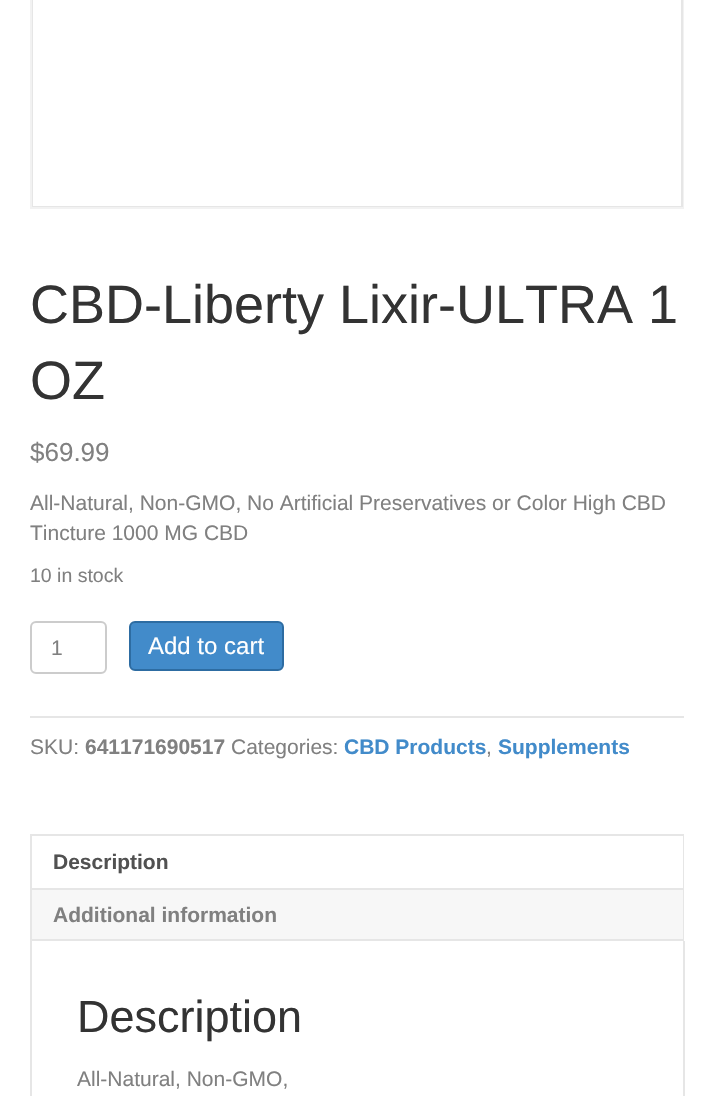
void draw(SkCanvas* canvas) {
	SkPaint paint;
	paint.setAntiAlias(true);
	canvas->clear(0xffffffff);
	paint.setStroke(true);
	paint.setStrokeWidth(2);
	paint.setColor(0xfff2f2f2);
	canvas->drawRect(SkRect::MakeXYWH(31, -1, 652, 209), paint);
	paint.setColor(0xffe6e6e6);
	canvas->drawRect(SkRect::MakeXYWH(33, -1, 649, 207), paint);
	paint.setStroke(false);
	paint.setColor(0xffffffff);
	canvas->drawRect(SkRect::MakeXYWH(33, 0, 648, 206), paint);
	SkFont f1(fontMgr->matchFamilyStyle("Liberation Sans", SkFontStyle::Normal()), 54);
	f1.setSubpixel(true);
	paint.setColor(0xff333333);
	canvas->drawString("CBD-Liberty Lixir-ULTRA 1", 30, 323, f1, paint);
	canvas->drawString("OZ", 30, 399, f1, paint);
	SkFont f2(fontMgr->matchFamilyStyle("Liberation Sans", SkFontStyle::Normal()), 26);
	f2.setSubpixel(true);
	paint.setColor(0xff808080);
	canvas->drawString("$69.99", 30, 461, f2, paint);
	SkFont f3(fontMgr->matchFamilyStyle("Liberation Sans", SkFontStyle::Normal()), 21);
	f3.setSubpixel(true);
	canvas->drawString("All-Natural, Non-GMO, No Artificial Preservatives or Color High CBD", 30, 510, f3, paint);
	canvas->drawString("Tincture 1000 MG CBD", 30, 540, f3, paint);
	SkFont f4(fontMgr->matchFamilyStyle("Liberation Sans", SkFontStyle::Normal()), 19.5);
	f4.setSubpixel(true);
	canvas->drawString("10 in stock", 30, 582, f4, paint);
	paint.setStroke(true);
	paint.setColor(0xffcccccc);
	canvas->drawRoundRect(SkRect::MakeXYWH(31, 622, 75, 51), 5, 5, paint);
	paint.setStroke(false);
	paint.setColor(0xff808080);
	canvas->drawString("1", 51, 655, f3, paint);
	paint.setColor(0xff428bca);
	canvas->drawRoundRect(SkRect::MakeXYWH(130, 622, 153, 48), 5, 5, paint);
	paint.setStroke(true);
	paint.setColor(0xff2d6ca2);
	canvas->drawRoundRect(SkRect::MakeXYWH(130, 622, 153, 48), 5, 5, paint);
	SkFont f5(fontMgr->matchFamilyStyle("Liberation Sans", SkFontStyle::Normal()), 24);
	f5.setSubpixel(true);
	paint.setStroke(false);
	paint.setColor(0xffffffff);
	canvas->drawString("Add to cart", 148, 654, f5, paint);
	paint.setColor(0xffe6e6e6);
	canvas->drawRect(SkRect::MakeXYWH(30, 716, 654, 2), paint);
	paint.setColor(0xff808080);
	canvas->drawString("SKU:", 30, 754, f3, paint);
	SkFont f6(fontMgr->matchFamilyStyle("Liberation Sans", SkFontStyle::Bold()), 21);
	f6.setSubpixel(true);
	canvas->drawString("641171690517", 85, 754, f6, paint);
	canvas->drawString("Categories:", 231, 754, f3, paint);
	paint.setColor(0xff428bca);
	canvas->drawString("CBD Products", 344, 754, f6, paint);
	paint.setColor(0xff808080);
	canvas->drawString(",", 486, 754, f3, paint);
	paint.setColor(0xff428bca);
	canvas->drawString("Supplements", 498, 754, f6, paint);
	paint.setColor(0xffe6e6e6);
	canvas->drawRect(SkRect::MakeXYWH(30, 834, 654, 2), paint);
	canvas->drawRect(SkRect::MakeXYWH(683, 834, 1, 54), paint);
	canvas->drawRect(SkRect::MakeXYWH(30, 834, 2, 54), paint);
	paint.setColor(0xff515151);
	canvas->drawString("Description", 53, 869, f6, paint);
	paint.setColor(0xfff7f7f7);
	canvas->drawRect(SkRect::MakeXYWH(32, 890, 651, 49), paint);
	paint.setColor(0xffe6e6e6);
	canvas->drawRect(SkRect::MakeXYWH(30, 888, 654, 2), paint);
	canvas->drawRect(SkRect::MakeXYWH(683, 888, 1, 53), paint);
	canvas->drawRect(SkRect::MakeXYWH(30, 888, 2, 53), paint);
	paint.setColor(0xff808080);
	canvas->drawString("Additional information", 53, 922, f6, paint);
	paint.setColor(0xffe6e6e6);
	canvas->drawRect(SkRect::MakeXYWH(30, 939, 654, 2), paint);
	canvas->drawRect(SkRect::MakeXYWH(683, 941, 2, 155), paint);
	canvas->drawRect(SkRect::MakeXYWH(30, 941, 2, 155), paint);
	SkFont f7(fontMgr->matchFamilyStyle("Liberation Sans", SkFontStyle::Normal()), 45);
	f7.setSubpixel(true);
	paint.setColor(0xff333333);
	canvas->drawString("Description", 77, 1032, f7, paint);
	paint.setColor(0xff808080);
	canvas->drawString("All-Natural, Non-GMO,", 77, 1086, f3, paint);
}
